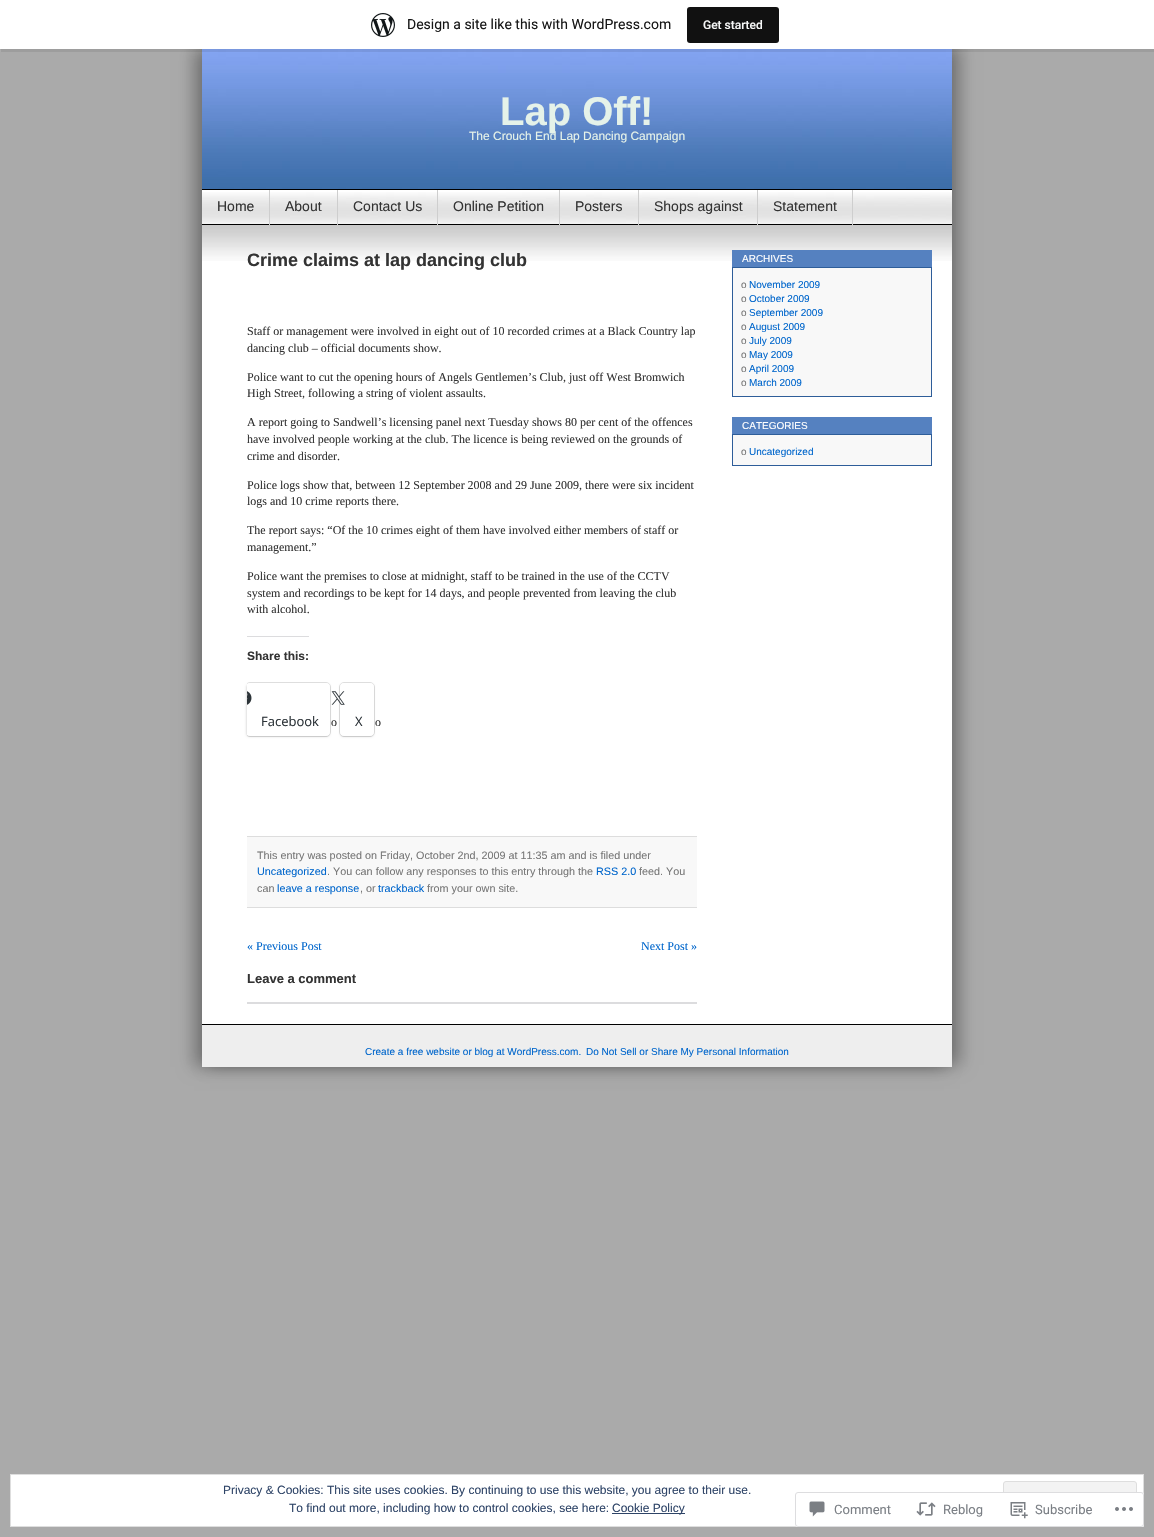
void draw(SkCanvas* canvas) {
	SkPaint paint;
	paint.setAntiAlias(true);
	auto svgPath = [&](const char* data, bool evenOdd = false) {
		SkPath result = *SkParsePath::FromSVGString(data);
		if (evenOdd) result.setFillType(SkPathFillType::kEvenOdd);
		return result;
	};
	canvas->clear(0xffaaaaaa);
	paint.setColor(0x4d000000);
	paint.setMaskFilter(SkMaskFilter::MakeBlur(kNormal_SkBlurStyle, 8));
	canvas->drawRect(SkRect::MakeXYWH(194, 49, 750, 1018), paint);
	paint.setMaskFilter(nullptr);
	paint.setMaskFilter(SkMaskFilter::MakeBlur(kNormal_SkBlurStyle, 8));
	canvas->drawRect(SkRect::MakeXYWH(210, 47, 750, 1018), paint);
	paint.setMaskFilter(nullptr);
	canvas->drawImageRect(SkImages::DeferredFromEncodedData(SkData::MakeFromFileName("img2.png")), SkRect::MakeXYWH(202, 49, 750, 140), SkSamplingOptions());
	paint.setColor(0x14000000);
	canvas->drawPath(svgPath("M1 49V52H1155V3H1154V49Z"), paint);
	paint.setColor(0xffffffff);
	canvas->drawRect(SkRect::MakeXYWH(0, 0, 1154, 49), paint);
	canvas->drawImageRect(SkImages::DeferredFromEncodedData(SkData::MakeFromFileName("img1.png")), SkRect::MakeXYWH(371, 13, 24, 24), SkSamplingOptions());
	SkFont f1(fontMgr->matchFamilyStyle("Roboto", SkFontStyle::Normal()), 14);
	f1.setSubpixel(true);
	paint.setColor(0xff171717);
	canvas->drawString("Design a site like this with WordPress.com", 407, 29, f1, paint);
	paint.setColor(0xff111111);
	canvas->drawRoundRect(SkRect::MakeXYWH(687, 7, 92, 36), 3, 3, paint);
	SkFont f2(fontMgr->matchFamilyStyle("Roboto", SkFontStyle(500, SkFontStyle::kNormal_Width, SkFontStyle::kUpright_Slant)), 12);
	f2.setSubpixel(true);
	paint.setColor(0xfff6f7f7);
	canvas->drawString("Get started", 703, 29, f2, paint);
	paint.setColor(0xffffffff);
	canvas->drawRect(SkRect::MakeXYWH(202, 190, 750, 834), paint);
	paint.setColor(0xff000000);
	canvas->drawRect(SkRect::MakeXYWH(202, 189, 750, 1), paint);
	SkFont f3(fontMgr->matchFamilyStyle("Liberation Sans", SkFontStyle::Bold()), 40);
	f3.setSubpixel(true);
	paint.setColor(0xffe5f2e9);
	canvas->drawString("Lap Off!", 500, 125, f3, paint);
	SkFont f4(fontMgr->matchFamilyStyle("Liberation Sans", SkFontStyle::Normal()), 12);
	f4.setSubpixel(true);
	canvas->drawString("The Crouch End Lap Dancing Campaign", 469, 140, f4, paint);
	canvas->drawImageRect(SkImages::DeferredFromEncodedData(SkData::MakeFromFileName("img3.png")), SkRect::MakeXYWH(202, 192, 750, 32), SkSamplingOptions());
	paint.setColor(0xff000000);
	canvas->drawRect(SkRect::MakeXYWH(202, 224, 750, 1), paint);
	paint.setColor(0xffcecece);
	canvas->drawRect(SkRect::MakeXYWH(269, 190, 1, 35), paint);
	SkFont f5(fontMgr->matchFamilyStyle("Liberation Sans", SkFontStyle::Normal()), 14);
	f5.setSubpixel(true);
	paint.setColor(0xff333333);
	canvas->drawString("Home", 217, 211, f5, paint);
	paint.setColor(0xffcecece);
	canvas->drawRect(SkRect::MakeXYWH(337, 190, 1, 35), paint);
	paint.setColor(0xff333333);
	canvas->drawString("About", 285, 211, f5, paint);
	paint.setColor(0xffcecece);
	canvas->drawRect(SkRect::MakeXYWH(437, 190, 1, 35), paint);
	paint.setColor(0xff333333);
	canvas->drawString("Contact Us", 353, 211, f5, paint);
	paint.setColor(0xffcecece);
	canvas->drawRect(SkRect::MakeXYWH(559, 190, 1, 35), paint);
	paint.setColor(0xff333333);
	canvas->drawString("Online Petition", 453, 211, f5, paint);
	paint.setColor(0xffcecece);
	canvas->drawRect(SkRect::MakeXYWH(638, 190, 1, 35), paint);
	paint.setColor(0xff333333);
	canvas->drawString("Posters", 575, 211, f5, paint);
	paint.setColor(0xffcecece);
	canvas->drawRect(SkRect::MakeXYWH(757, 190, 1, 35), paint);
	paint.setColor(0xff333333);
	canvas->drawString("Shops against", 654, 211, f5, paint);
	paint.setColor(0xffcecece);
	canvas->drawRect(SkRect::MakeXYWH(852, 190, 1, 35), paint);
	paint.setColor(0xff333333);
	canvas->drawString("Statement", 773, 211, f5, paint);
	canvas->drawImageRect(SkImages::DeferredFromEncodedData(SkData::MakeFromFileName("img4.png")), SkRect::MakeXYWH(202, 225, 750, 36), SkSamplingOptions());
	SkFont f6(fontMgr->matchFamilyStyle("Liberation Sans", SkFontStyle::Bold()), 18);
	f6.setSubpixel(true);
	canvas->drawString("Crime claims at lap dancing club", 247, 266, f6, paint);
	SkFont f7(fontMgr->matchFamilyStyle("Liberation Serif", SkFontStyle::Normal()), 12);
	f7.setSubpixel(true);
	canvas->drawString("Staff or management were involved in eight out of 10 recorded crimes at a Black Country lap", 247, 335, f7, paint);
	canvas->drawString("dancing club – official documents show.", 247, 352, f7, paint);
	canvas->drawString("Police want to cut the opening hours of Angels Gentlemen’s Club, just off West Bromwich", 247, 381, f7, paint);
	canvas->drawString("High Street, following a string of violent assaults.", 247, 397, f7, paint);
	canvas->drawString("A report going to Sandwell’s licensing panel next Tuesday shows 80 per cent of the offences", 247, 426, f7, paint);
	canvas->drawString("have involved people working at the club. The licence is being reviewed on the grounds of", 247, 443, f7, paint);
	canvas->drawString("crime and disorder.", 247, 460, f7, paint);
	canvas->drawString("Police logs show that, between 12 September 2008 and 29 June 2009, there were six incident", 247, 489, f7, paint);
	canvas->drawString("logs and 10 crime reports there.", 247, 505, f7, paint);
	canvas->drawString("The report says: “Of the 10 crimes eight of them have involved either members of staff or", 247, 534, f7, paint);
	canvas->drawString("management.”", 247, 551, f7, paint);
	canvas->drawString("Police want the premises to close at midnight, staff to be trained in the use of the CCTV", 247, 580, f7, paint);
	canvas->drawString("system and recordings to be kept for 14 days, and people prevented from leaving the club", 247, 597, f7, paint);
	canvas->drawString("with alcohol.", 247, 613, f7, paint);
	paint.setColor(0xffdcdcde);
	canvas->drawRect(SkRect::MakeXYWH(247, 636, 62, 1), paint);
	SkFont f8(fontMgr->matchFamilyStyle("Liberation Sans", SkFontStyle::Bold()), 12);
	f8.setSubpixel(true);
	paint.setColor(0xff333333);
	canvas->drawString("Share this:", 247, 660, f8, paint);
	canvas->save();
	canvas->clipRect(SkRect::MakeXYWH(247, 271, 450, 684));
	paint.setStroke(true);
	paint.setStrokeWidth(1);
	paint.setColor(0xffe0e0e0);
	canvas->drawRoundRect(SkRect::MakeXYWH(245.5, 682.5, 85, 54), 4.5, 4.5, paint);
	canvas->restore();
	paint.setStroke(false);
	paint.setColor(0x1f000000);
	paint.setMaskFilter(SkMaskFilter::MakeBlur(kNormal_SkBlurStyle, 1));
	canvas->drawRoundRect(SkRect::MakeXYWH(246, 684, 84, 53), 4, 4, paint);
	paint.setMaskFilter(nullptr);
	canvas->save();
	canvas->clipRect(SkRect::MakeXYWH(247, 271, 450, 684));
	paint.setColor(0xffffffff);
	canvas->drawRoundRect(SkRect::MakeXYWH(246, 683, 84, 53), 4, 4, paint);
	canvas->restore();
	canvas->drawImageRect(SkImages::DeferredFromEncodedData(SkData::MakeFromFileName("img5.png")), SkRect::MakeXYWH(247, 691, 5, 14), SkSamplingOptions());
	SkFont f9(fontMgr->matchFamilyStyle("Open Sans", SkFontStyle::Normal()), 13);
	f9.setSubpixel(true);
	paint.setColor(0xff2c3338);
	canvas->drawString("Facebook", 261, 726, f9, paint);
	paint.setColor(0xff333333);
	canvas->drawString("o", 331, 726, f7, paint);
	paint.setStroke(true);
	paint.setColor(0xffe0e0e0);
	canvas->drawRoundRect(SkRect::MakeXYWH(339.5, 682.5, 35, 54), 4.5, 4.5, paint);
	paint.setStroke(false);
	paint.setColor(0x1f000000);
	paint.setMaskFilter(SkMaskFilter::MakeBlur(kNormal_SkBlurStyle, 1));
	canvas->drawRoundRect(SkRect::MakeXYWH(340, 684, 34, 53), 4, 4, paint);
	paint.setMaskFilter(nullptr);
	paint.setColor(0xffffffff);
	canvas->drawRoundRect(SkRect::MakeXYWH(340, 683, 34, 53), 4, 4, paint);
	canvas->drawImageRect(SkImages::DeferredFromEncodedData(SkData::MakeFromFileName("img6.png")), SkRect::MakeXYWH(331, 691, 14, 14), SkSamplingOptions());
	paint.setColor(0xff2c3338);
	canvas->drawString("X", 355, 726, f9, paint);
	paint.setColor(0xff333333);
	canvas->drawString("o", 375, 726, f7, paint);
	paint.setColor(0xfff8f8f8);
	canvas->drawRect(SkRect::MakeXYWH(247, 837, 450, 70), paint);
	paint.setColor(0xffdddddd);
	canvas->drawRect(SkRect::MakeXYWH(247, 836, 450, 1), paint);
	canvas->drawRect(SkRect::MakeXYWH(247, 907, 450, 1), paint);
	SkFont f10(fontMgr->matchFamilyStyle("Liberation Sans", SkFontStyle::Normal()), 10.8);
	f10.setSubpixel(true);
	paint.setColor(0xff777777);
	canvas->drawString("This entry was posted on Friday, October 2nd, 2009 at 11:35 am and is filed under", 257, 859, f10, paint);
	paint.setColor(0xff0066cc);
	canvas->drawString("Uncategorized", 257, 875, f10, paint);
	paint.setColor(0xff777777);
	canvas->drawString(". You can follow any responses to this entry through the", 327, 875, f10, paint);
	paint.setColor(0xff0066cc);
	canvas->drawString("RSS 2.0", 596, 875, f10, paint);
	paint.setColor(0xff777777);
	canvas->drawString("feed. You", 639, 875, f10, paint);
	canvas->drawString("can", 257, 892, f10, paint);
	paint.setColor(0xff0066cc);
	canvas->drawString("leave a response", 277, 892, f10, paint);
	paint.setColor(0xff777777);
	canvas->drawString(", or", 360, 892, f10, paint);
	paint.setColor(0xff0066cc);
	canvas->drawString("trackback", 378, 892, f10, paint);
	paint.setColor(0xff777777);
	canvas->drawString("from your own site.", 427, 892, f10, paint);
	paint.setColor(0xff0066cc);
	canvas->drawString("« Previous Post", 247, 950, f7, paint);
	canvas->drawString("Next Post »", 641, 950, f7, paint);
	SkFont f11(fontMgr->matchFamilyStyle("Liberation Sans", SkFontStyle::Bold()), 13);
	f11.setSubpixel(true);
	paint.setColor(0xff333333);
	canvas->drawString("Leave a comment", 247, 983, f11, paint);
	paint.setColor(0xffdcdcde);
	canvas->drawRect(SkRect::MakeXYWH(247, 1002, 450, 2), paint);
	paint.setColor(0xff5581c0);
	canvas->drawRect(SkRect::MakeXYWH(732, 250, 200, 17), paint);
	SkFont f12(fontMgr->matchFamilyStyle("Liberation Sans", SkFontStyle::Normal()), 10);
	f12.setSubpixel(true);
	paint.setColor(0xffffffff);
	canvas->drawString("ARCHIVES", 742, 262, f12, paint);
	paint.setColor(0xfff8f8f8);
	canvas->drawRect(SkRect::MakeXYWH(732.5, 267.5, 199, 129), paint);
	paint.setStroke(true);
	paint.setColor(0xff2e5d99);
	canvas->drawRect(SkRect::MakeXYWH(732.5, 267.5, 199, 129), paint);
	paint.setStroke(false);
	paint.setColor(0xff777777);
	canvas->drawString("o", 741, 288, f12, paint);
	paint.setColor(0xff0066cc);
	canvas->drawString("November 2009", 749, 288, f12, paint);
	paint.setColor(0xff777777);
	canvas->drawString("o", 741, 302, f12, paint);
	paint.setColor(0xff0066cc);
	canvas->drawString("October 2009", 749, 302, f12, paint);
	paint.setColor(0xff777777);
	canvas->drawString("o", 741, 316, f12, paint);
	paint.setColor(0xff0066cc);
	canvas->drawString("September 2009", 749, 316, f12, paint);
	paint.setColor(0xff777777);
	canvas->drawString("o", 741, 330, f12, paint);
	paint.setColor(0xff0066cc);
	canvas->drawString("August 2009", 749, 330, f12, paint);
	paint.setColor(0xff777777);
	canvas->drawString("o", 741, 344, f12, paint);
	paint.setColor(0xff0066cc);
	canvas->drawString("July 2009", 749, 344, f12, paint);
	paint.setColor(0xff777777);
	canvas->drawString("o", 741, 358, f12, paint);
	paint.setColor(0xff0066cc);
	canvas->drawString("May 2009", 749, 358, f12, paint);
	paint.setColor(0xff777777);
	canvas->drawString("o", 741, 372, f12, paint);
	paint.setColor(0xff0066cc);
	canvas->drawString("April 2009", 749, 372, f12, paint);
	paint.setColor(0xff777777);
	canvas->drawString("o", 741, 386, f12, paint);
	paint.setColor(0xff0066cc);
	canvas->drawString("March 2009", 749, 386, f12, paint);
	paint.setColor(0xff5581c0);
	canvas->drawRect(SkRect::MakeXYWH(732, 417, 200, 17), paint);
	paint.setColor(0xffffffff);
	canvas->drawString("CATEGORIES", 742, 429, f12, paint);
	paint.setColor(0xfff8f8f8);
	canvas->drawRect(SkRect::MakeXYWH(732.5, 434.5, 199, 31), paint);
	paint.setStroke(true);
	paint.setColor(0xff2e5d99);
	canvas->drawRect(SkRect::MakeXYWH(732.5, 434.5, 199, 31), paint);
	paint.setStroke(false);
	paint.setColor(0xff777777);
	canvas->drawString("o", 741, 455, f12, paint);
	paint.setColor(0xff0066cc);
	canvas->drawString("Uncategorized", 749, 455, f12, paint);
	paint.setColor(0xffeeeeee);
	canvas->drawRect(SkRect::MakeXYWH(202, 1025, 750, 42), paint);
	paint.setColor(0xff000000);
	canvas->drawRect(SkRect::MakeXYWH(202, 1024, 750, 1), paint);
	paint.setColor(0xff0066cc);
	canvas->drawString("Create a free website or blog at WordPress.com.", 365, 1055, f12, paint);
	canvas->drawString("Do Not Sell or Share My Personal Information", 586, 1055, f12, paint);
	paint.setColor(0xffffffff);
	canvas->drawRect(SkRect::MakeXYWH(10.5, 1474.5, 1133, 52), paint);
	paint.setStroke(true);
	paint.setColor(0xffdedede);
	canvas->drawRect(SkRect::MakeXYWH(10.5, 1474.5, 1133, 52), paint);
	paint.setStroke(false);
	paint.setColor(0xff2e4467);
	canvas->drawString("Privacy & Cookies: This site uses cookies. By continuing to use this website, you agree to their use.", 223, 1494, f4, paint);
	paint.setColor(0xfff3f3f3);
	canvas->drawRoundRect(SkRect::MakeXYWH(1003.5, 1481.5, 133, 38), 2.5, 2.5, paint);
	paint.setStroke(true);
	paint.setColor(0xffdedede);
	canvas->drawRoundRect(SkRect::MakeXYWH(1003.5, 1481.5, 133, 38), 2.5, 2.5, paint);
	paint.setStroke(false);
	paint.setColor(0xff2e4467);
	canvas->drawString("To find out more, including how to control cookies, see here:", 289, 1512, f4, paint);
	canvas->drawRect(SkRect::MakeXYWH(612, 1513, 73, 1), paint);
	canvas->drawString("Cookie Policy", 612, 1512, f4, paint);
	paint.setColor(0xfaffffff);
	canvas->drawRoundRect(SkRect::MakeXYWH(795, 1492, 349, 35), 3, 3, paint);
	paint.setStroke(true);
	paint.setColor(0xfadcdcde);
	canvas->drawRoundRect(SkRect::MakeXYWH(795.5, 1492.5, 348, 34), 2.5, 2.5, paint);
	canvas->drawImageRect(SkImages::DeferredFromEncodedData(SkData::MakeFromFileName("img7.png")), SkRect::MakeXYWH(809, 1501, 16, 16), SkSamplingOptions());
	SkFont f13(fontMgr->matchFamilyStyle("Roboto", SkFontStyle::Normal()), 13);
	f13.setSubpixel(true);
	paint.setStroke(false);
	paint.setColor(0xff7b7f85);
	canvas->drawString("Comment", 834, 1514, f13, paint);
	canvas->drawImageRect(SkImages::DeferredFromEncodedData(SkData::MakeFromFileName("img8.png")), SkRect::MakeXYWH(916, 1502, 20, 14), SkSamplingOptions());
	canvas->drawString("Reblog", 943, 1514, f13, paint);
	canvas->drawImageRect(SkImages::DeferredFromEncodedData(SkData::MakeFromFileName("img9.png")), SkRect::MakeXYWH(1010, 1502, 18, 17), SkSamplingOptions());
	canvas->drawString("Subscribe", 1035, 1514, f13, paint);
	canvas->drawImageRect(SkImages::DeferredFromEncodedData(SkData::MakeFromFileName("img10.png")), SkRect::MakeXYWH(1115, 1507, 18, 4), SkSamplingOptions());
}
